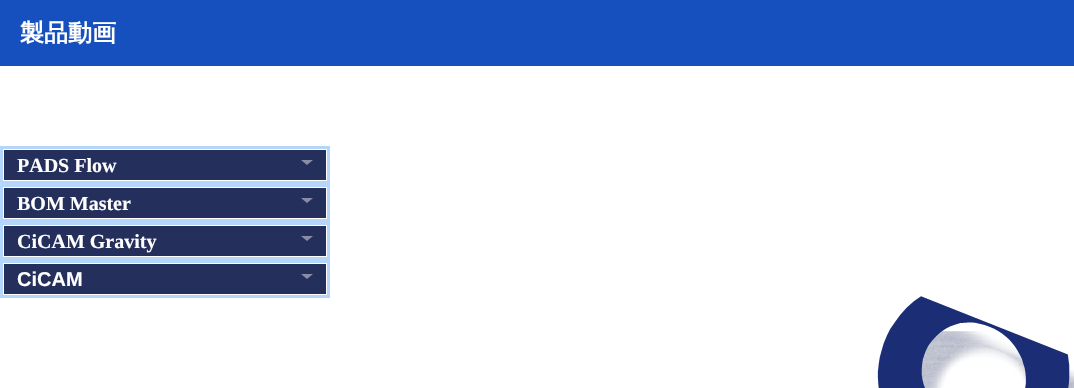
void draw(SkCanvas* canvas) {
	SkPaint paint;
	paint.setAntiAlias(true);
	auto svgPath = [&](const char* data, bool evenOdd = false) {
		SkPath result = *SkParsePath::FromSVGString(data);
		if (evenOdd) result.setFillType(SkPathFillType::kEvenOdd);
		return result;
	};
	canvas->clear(0xffffffff);
	paint.setColor(0xff1550be);
	canvas->drawRect(SkRect::MakeXYWH(0, 0, 1074, 66), paint);
	SkFont f1(fontMgr->matchFamilyStyle("WenQuanYi Zen Hei", SkFontStyle::Bold()), 24);
	f1.setSubpixel(true);
	paint.setColor(0xffffffff);
	canvas->drawString("製品動画", 20, 41, f1, paint);
	paint.setStroke(true);
	paint.setStrokeWidth(3);
	paint.setColor(0xffb4d6fa);
	canvas->drawRect(SkRect::MakeXYWH(1.5, 147.5, 327, 35), paint);
	paint.setStroke(false);
	paint.setColor(0xff242f5b);
	canvas->drawRect(SkRect::MakeXYWH(4, 150, 322, 30), paint);
	SkFont f2(fontMgr->matchFamilyStyle("Liberation Serif", SkFontStyle::Bold()), 20);
	f2.setSubpixel(true);
	paint.setColor(0xffffffff);
	canvas->drawString("PADS Flow", 17, 172, f2, paint);
	paint.setColor(0xff878da5);
	canvas->drawPath(svgPath("M301 160H313L307 165Z"), paint);
	paint.setStroke(true);
	paint.setColor(0xffb4d6fa);
	canvas->drawRect(SkRect::MakeXYWH(1.5, 185.5, 327, 35), paint);
	paint.setStroke(false);
	paint.setColor(0xff242f5b);
	canvas->drawRect(SkRect::MakeXYWH(4, 188, 322, 30), paint);
	paint.setColor(0xffffffff);
	canvas->drawString("BOM Master", 17, 210, f2, paint);
	paint.setColor(0xff878da5);
	canvas->drawPath(svgPath("M301 198H313L307 203Z"), paint);
	paint.setStroke(true);
	paint.setColor(0xffb4d6fa);
	canvas->drawRect(SkRect::MakeXYWH(1.5, 223.5, 327, 35), paint);
	paint.setStroke(false);
	paint.setColor(0xff242f5b);
	canvas->drawRect(SkRect::MakeXYWH(4, 226, 322, 30), paint);
	paint.setColor(0xffffffff);
	canvas->drawString("CiCAM Gravity", 17, 248, f2, paint);
	paint.setColor(0xff878da5);
	canvas->drawPath(svgPath("M301 236H313L307 241Z"), paint);
	paint.setStroke(true);
	paint.setColor(0xffb4d6fa);
	canvas->drawRect(SkRect::MakeXYWH(1.5, 261.5, 327, 35), paint);
	paint.setStroke(false);
	paint.setColor(0xff242f5b);
	canvas->drawRect(SkRect::MakeXYWH(4, 264, 322, 30), paint);
	SkFont f3(fontMgr->matchFamilyStyle("Liberation Sans", SkFontStyle::Bold()), 20);
	f3.setSubpixel(true);
	paint.setColor(0xffffffff);
	canvas->drawString("CiCAM", 17, 286, f3, paint);
	paint.setColor(0xff878da5);
	canvas->drawPath(svgPath("M301 274H313L307 279Z"), paint);
	canvas->drawImageRect(SkImages::DeferredFromEncodedData(SkData::MakeFromFileName("img1.png")), SkRect::MakeXYWH(877, 296, 197, 92), SkSamplingOptions());
}
